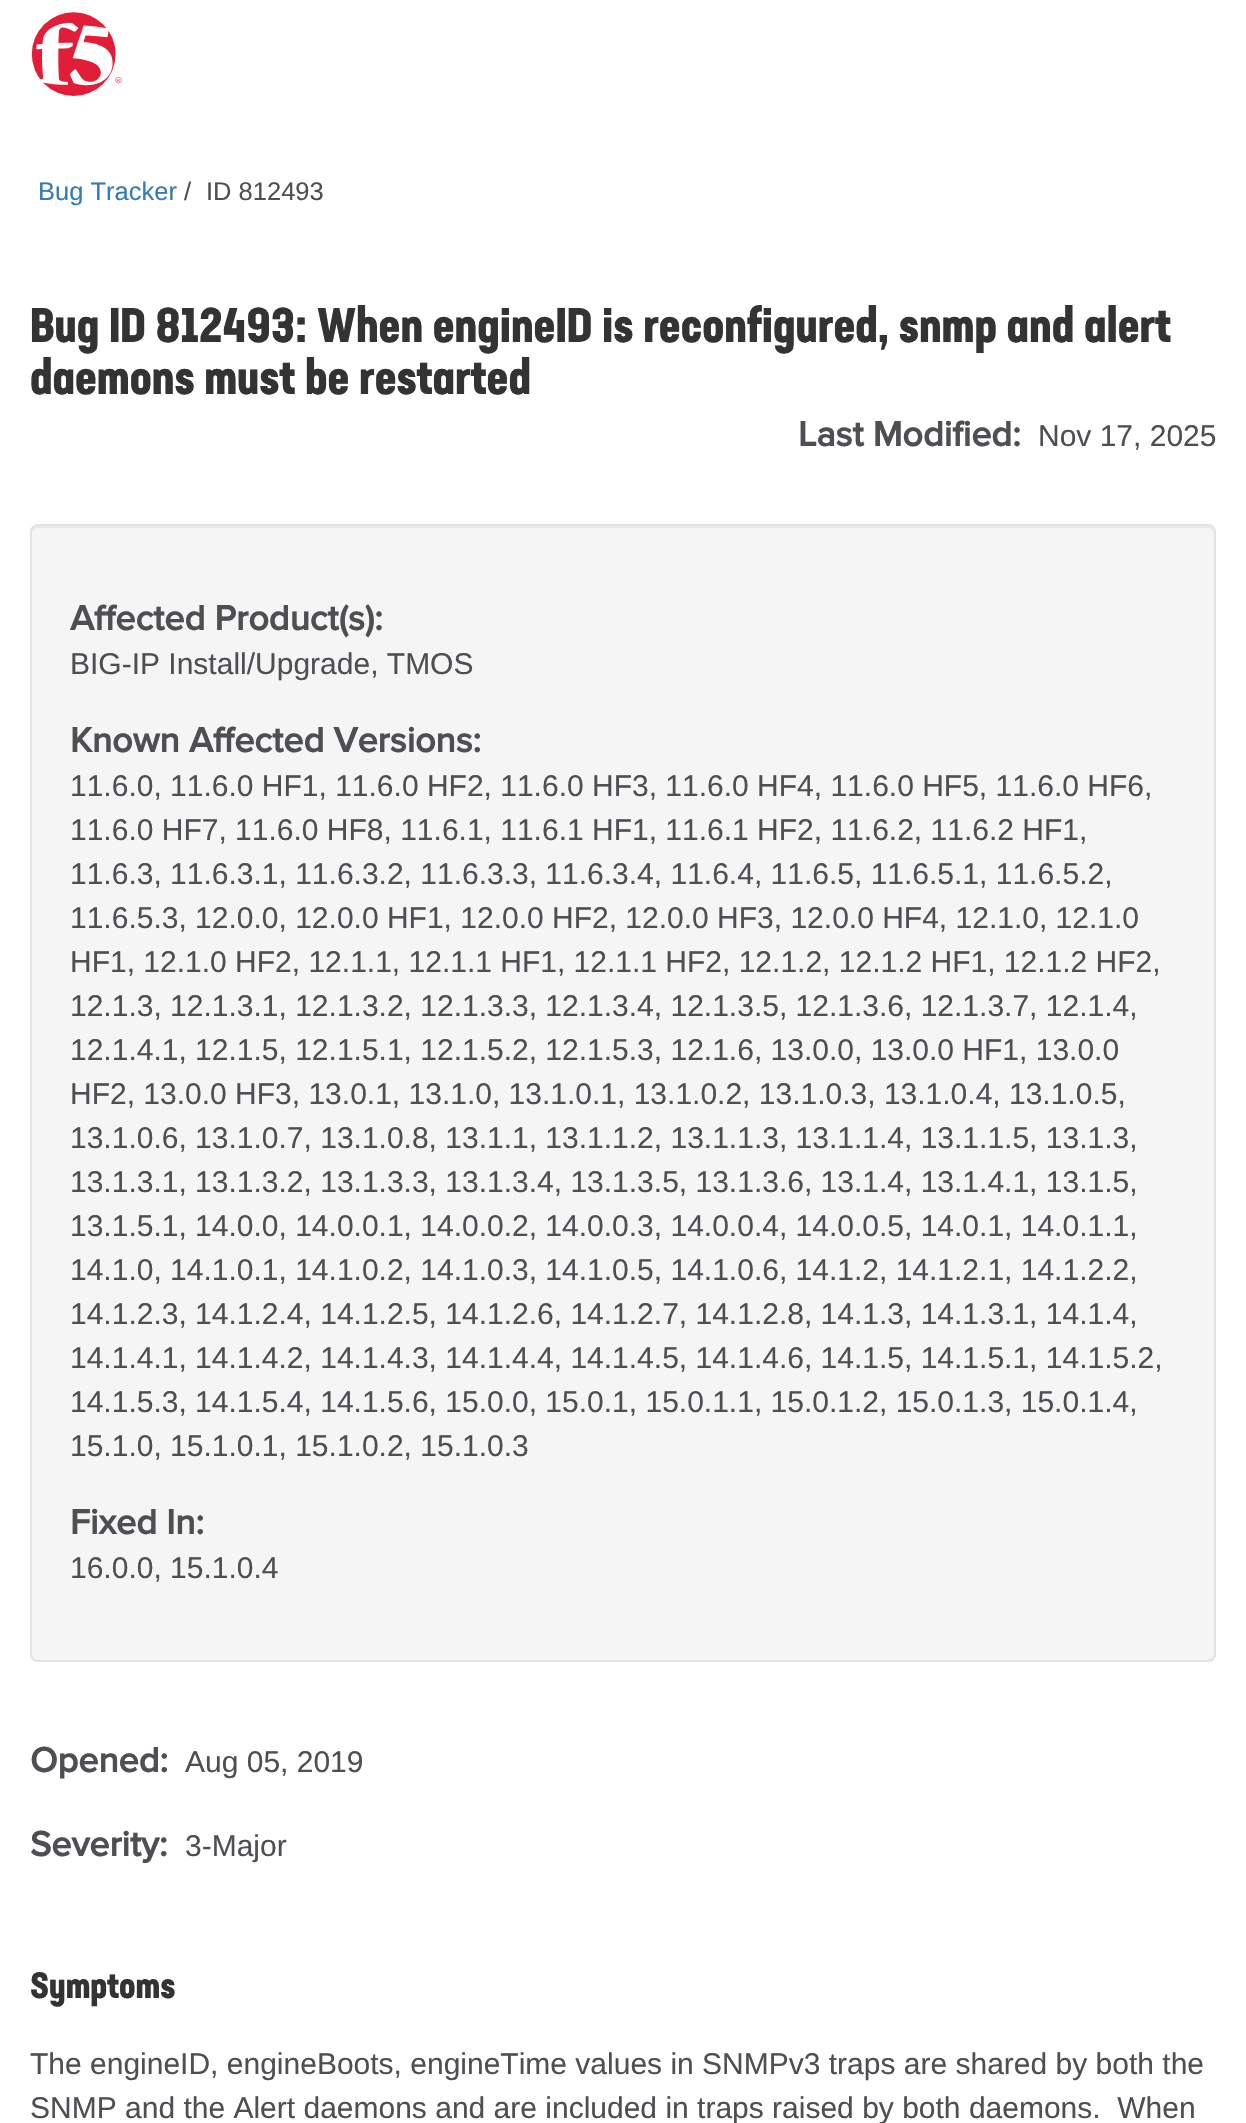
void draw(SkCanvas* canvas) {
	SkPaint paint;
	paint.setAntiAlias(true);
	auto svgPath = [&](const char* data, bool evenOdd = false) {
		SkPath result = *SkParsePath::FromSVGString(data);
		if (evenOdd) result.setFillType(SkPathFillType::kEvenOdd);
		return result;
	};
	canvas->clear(0xffffffff);
	canvas->drawImageRect(SkImages::DeferredFromEncodedData(SkData::MakeFromFileName("img1.png")), SkRect::MakeXYWH(31, 12, 91, 84), SkSamplingOptions());
	SkFont f1(fontMgr->matchFamilyStyle("Liberation Sans", SkFontStyle::Normal()), 25.5);
	f1.setSubpixel(true);
	paint.setColor(0xff337ab7);
	canvas->drawString("Bug Tracker", 38, 200, f1, paint);
	paint.setColor(0xff4d4f53);
	canvas->drawString("/", 184, 200, f1, paint);
	canvas->drawString("ID 812493", 206, 200, f1, paint);
	SkFont f2(fontMgr->matchFamilyStyle("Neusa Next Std", SkFontStyle::Bold()), 48);
	f2.setSubpixel(true);
	paint.setColor(0xff333333);
	canvas->drawString("Bug ID 812493: When engineID is reconfigured, snmp and alert", 30, 342, f2, paint);
	canvas->drawString("daemons must be restarted", 30, 394, f2, paint);
	SkFont f3(fontMgr->matchFamilyStyle("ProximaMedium", SkFontStyle::Bold()), 36);
	f3.setSubpixel(true);
	paint.setColor(0xff4d4f53);
	canvas->drawString("Last Modified:", 798, 446, f3, paint);
	SkFont f4(fontMgr->matchFamilyStyle("Liberation Sans", SkFontStyle::Normal()), 30);
	f4.setSubpixel(true);
	canvas->drawString("Nov 17, 2025", 1038, 446, f4, paint);
	paint.setColor(0xfff5f5f5);
	canvas->drawRoundRect(SkRect::MakeXYWH(30, 524, 1186, 1138), 8, 8, paint);
	paint.setColor(0xffe9e9e9);
	canvas->drawPath(svgPath("M38 528H1208C1211 528 1214 531 1214 534V532C1214 529 1211 526 1208 526H38C35 526 32 529 32 532V534C32 531 35 528 38 528Z"), paint);
	paint.setStroke(true);
	paint.setStrokeWidth(2);
	paint.setColor(0xffe3e3e3);
	canvas->drawRoundRect(SkRect::MakeXYWH(31, 525, 1184, 1136), 7, 7, paint);
	paint.setStroke(false);
	paint.setColor(0xff4d4f53);
	canvas->drawString("Affected Product(s):", 70, 630, f3, paint);
	canvas->drawString("BIG-IP Install/Upgrade, TMOS", 70, 674, f4, paint);
	canvas->drawString("Known Affected Versions:", 70, 752, f3, paint);
	canvas->drawString("11.6.0, 11.6.0 HF1, 11.6.0 HF2, 11.6.0 HF3, 11.6.0 HF4, 11.6.0 HF5, 11.6.0 HF6,", 70, 796, f4, paint);
	canvas->drawString("11.6.0 HF7, 11.6.0 HF8, 11.6.1, 11.6.1 HF1, 11.6.1 HF2, 11.6.2, 11.6.2 HF1,", 70, 840, f4, paint);
	canvas->drawString("11.6.3, 11.6.3.1, 11.6.3.2, 11.6.3.3, 11.6.3.4, 11.6.4, 11.6.5, 11.6.5.1, 11.6.5.2,", 70, 884, f4, paint);
	canvas->drawString("11.6.5.3, 12.0.0, 12.0.0 HF1, 12.0.0 HF2, 12.0.0 HF3, 12.0.0 HF4, 12.1.0, 12.1.0", 70, 928, f4, paint);
	canvas->drawString("HF1, 12.1.0 HF2, 12.1.1, 12.1.1 HF1, 12.1.1 HF2, 12.1.2, 12.1.2 HF1, 12.1.2 HF2,", 70, 972, f4, paint);
	canvas->drawString("12.1.3, 12.1.3.1, 12.1.3.2, 12.1.3.3, 12.1.3.4, 12.1.3.5, 12.1.3.6, 12.1.3.7, 12.1.4,", 70, 1016, f4, paint);
	canvas->drawString("12.1.4.1, 12.1.5, 12.1.5.1, 12.1.5.2, 12.1.5.3, 12.1.6, 13.0.0, 13.0.0 HF1, 13.0.0", 70, 1060, f4, paint);
	canvas->drawString("HF2, 13.0.0 HF3, 13.0.1, 13.1.0, 13.1.0.1, 13.1.0.2, 13.1.0.3, 13.1.0.4, 13.1.0.5,", 70, 1104, f4, paint);
	canvas->drawString("13.1.0.6, 13.1.0.7, 13.1.0.8, 13.1.1, 13.1.1.2, 13.1.1.3, 13.1.1.4, 13.1.1.5, 13.1.3,", 70, 1148, f4, paint);
	canvas->drawString("13.1.3.1, 13.1.3.2, 13.1.3.3, 13.1.3.4, 13.1.3.5, 13.1.3.6, 13.1.4, 13.1.4.1, 13.1.5,", 70, 1192, f4, paint);
	canvas->drawString("13.1.5.1, 14.0.0, 14.0.0.1, 14.0.0.2, 14.0.0.3, 14.0.0.4, 14.0.0.5, 14.0.1, 14.0.1.1,", 70, 1236, f4, paint);
	canvas->drawString("14.1.0, 14.1.0.1, 14.1.0.2, 14.1.0.3, 14.1.0.5, 14.1.0.6, 14.1.2, 14.1.2.1, 14.1.2.2,", 70, 1280, f4, paint);
	canvas->drawString("14.1.2.3, 14.1.2.4, 14.1.2.5, 14.1.2.6, 14.1.2.7, 14.1.2.8, 14.1.3, 14.1.3.1, 14.1.4,", 70, 1324, f4, paint);
	canvas->drawString("14.1.4.1, 14.1.4.2, 14.1.4.3, 14.1.4.4, 14.1.4.5, 14.1.4.6, 14.1.5, 14.1.5.1, 14.1.5.2,", 70, 1368, f4, paint);
	canvas->drawString("14.1.5.3, 14.1.5.4, 14.1.5.6, 15.0.0, 15.0.1, 15.0.1.1, 15.0.1.2, 15.0.1.3, 15.0.1.4,", 70, 1412, f4, paint);
	canvas->drawString("15.1.0, 15.1.0.1, 15.1.0.2, 15.1.0.3", 70, 1456, f4, paint);
	canvas->drawString("Fixed In:", 70, 1534, f3, paint);
	canvas->drawString("16.0.0, 15.1.0.4", 70, 1578, f4, paint);
	canvas->drawString("Opened:", 30, 1772, f3, paint);
	canvas->drawString("Aug 05, 2019", 185, 1772, f4, paint);
	canvas->drawString("Severity:", 30, 1856, f3, paint);
	canvas->drawString("3-Major", 185, 1856, f4, paint);
	SkFont f5(fontMgr->matchFamilyStyle("Neusa Next Std", SkFontStyle::Bold()), 36);
	f5.setSubpixel(true);
	paint.setColor(0xff333333);
	canvas->drawString("Symptoms", 30, 1998, f5, paint);
	paint.setColor(0xff4d4f53);
	canvas->drawString("The engineID, engineBoots, engineTime values in SNMPv3 traps are shared by both the", 30, 2074, f4, paint);
	canvas->drawString("SNMP and the Alert daemons and are included in traps raised by both daemons.  When", 30, 2118, f4, paint);
}
